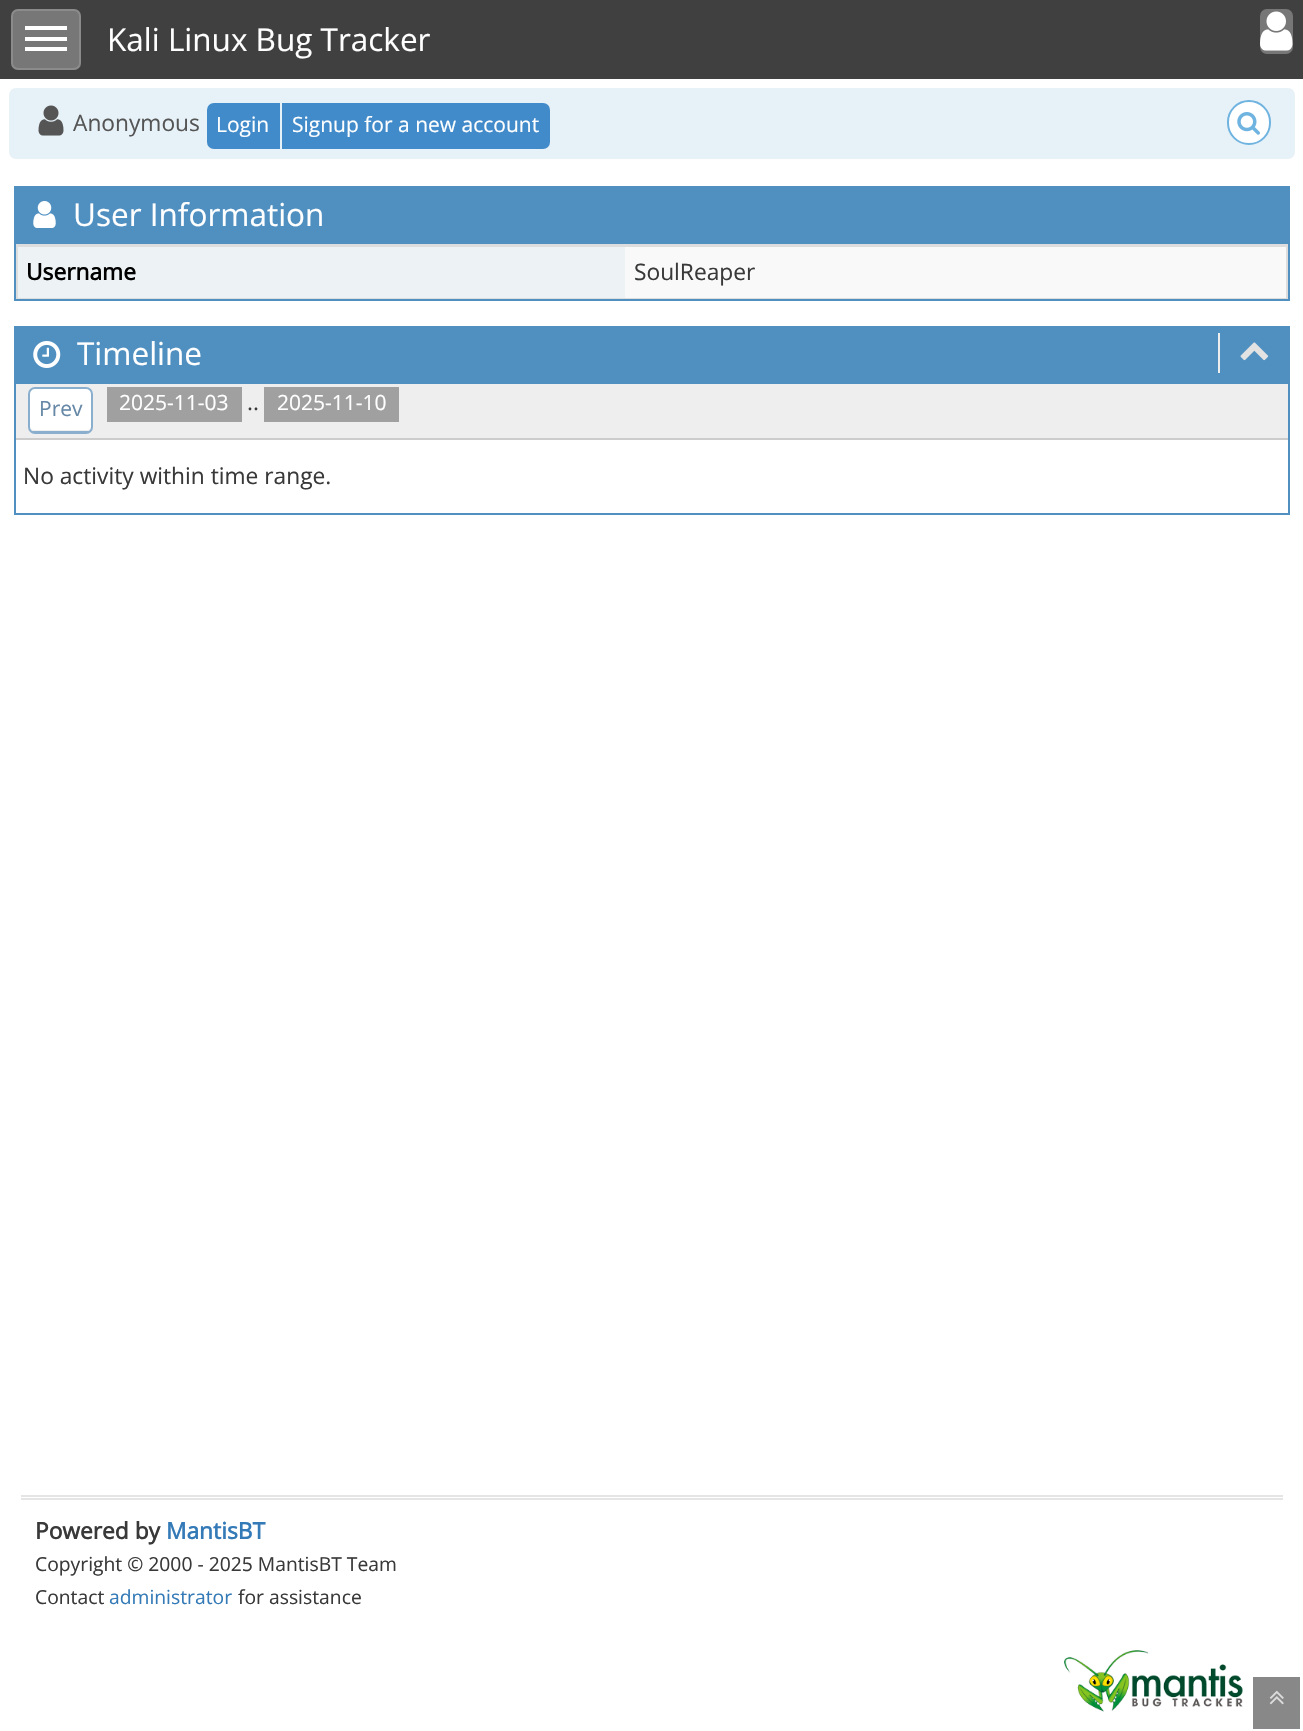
void draw(SkCanvas* canvas) {
	SkPaint paint;
	paint.setAntiAlias(true);
	auto svgPath = [&](const char* data, bool evenOdd = false) {
		SkPath result = *SkParsePath::FromSVGString(data);
		if (evenOdd) result.setFillType(SkPathFillType::kEvenOdd);
		return result;
	};
	canvas->clear(0xffffffff);
	paint.setColor(0xff404040);
	canvas->drawRect(SkRect::MakeXYWH(0, 0, 1303, 79), paint);
	paint.setColor(0xff777777);
	canvas->drawRoundRect(SkRect::MakeXYWH(11, 9, 70, 61), 7, 7, paint);
	paint.setStroke(true);
	paint.setStrokeWidth(2);
	paint.setColor(0x26ffffff);
	canvas->drawRoundRect(SkRect::MakeXYWH(12, 10, 68, 59), 6, 6, paint);
	paint.setStroke(false);
	paint.setColor(0xffffffff);
	canvas->drawRect(SkRect::MakeXYWH(25, 26, 42, 4), paint);
	canvas->drawRect(SkRect::MakeXYWH(25, 37, 42, 4), paint);
	canvas->drawRect(SkRect::MakeXYWH(25, 47, 42, 4), paint);
	SkFont f1(fontMgr->matchFamilyStyle("Open Sans", SkFontStyle::Normal()), 31.5);
	f1.setSubpixel(true);
	canvas->drawString("Kali Linux Bug Tracker", 107, 51, f1, paint);
	paint.setColor(0xff777777);
	canvas->drawRoundRect(SkRect::MakeXYWH(1260, 9, 33, 45), 7, 7, paint);
	canvas->drawImageRect(SkImages::DeferredFromEncodedData(SkData::MakeFromFileName("img1.png")), SkRect::MakeXYWH(1260, 11, 33, 40), SkSamplingOptions());
	paint.setColor(0xffe7f2f8);
	canvas->drawRoundRect(SkRect::MakeXYWH(9, 88, 1286, 71), 7, 7, paint);
	canvas->drawImageRect(SkImages::DeferredFromEncodedData(SkData::MakeFromFileName("img2.png")), SkRect::MakeXYWH(38, 105, 26, 31), SkSamplingOptions());
	SkFont f2(fontMgr->matchFamilyStyle("Open Sans", SkFontStyle::Normal()), 22.75);
	f2.setSubpixel(true);
	paint.setColor(0xff555555);
	canvas->drawString("Anonymous", 73, 131, f2, paint);
	paint.setColor(0xff428bca);
	canvas->drawPath(svgPath("M214 104H279V148H214C210.5 148 208 145.5 208 142V110C208 106.5 210.5 104 214 104Z"), paint);
	paint.setStroke(true);
	canvas->drawPath(svgPath("M214 104H279V148H214C210.5 148 208 145.5 208 142V110C208 106.5 210.5 104 214 104Z"), paint);
	SkFont f3(fontMgr->matchFamilyStyle("Open Sans", SkFontStyle::Normal()), 21);
	f3.setSubpixel(true);
	paint.setStroke(false);
	paint.setColor(0xffffffff);
	canvas->drawString("Login", 216, 132, f3, paint);
	paint.setColor(0xff428bca);
	canvas->drawPath(svgPath("M283 104H543C546.5 104 549 106.5 549 110V142C549 145.5 546.5 148 543 148H283Z"), paint);
	paint.setStroke(true);
	canvas->drawPath(svgPath("M283 104H543C546.5 104 549 106.5 549 110V142C549 145.5 546.5 148 543 148H283Z"), paint);
	paint.setStroke(false);
	paint.setColor(0xffffffff);
	canvas->drawString("Signup for a new account", 292, 132, f3, paint);
	canvas->drawRoundRect(SkRect::MakeXYWH(1228, 101, 42, 43), 21, 21, paint);
	paint.setStroke(true);
	paint.setColor(0xff6fb3e0);
	canvas->drawRoundRect(SkRect::MakeXYWH(1228, 101, 42, 43), 21, 21, paint);
	canvas->drawImageRect(SkImages::DeferredFromEncodedData(SkData::MakeFromFileName("img3.png")), SkRect::MakeXYWH(1237, 112, 23, 23), SkSamplingOptions());
	paint.setColor(0xff5090c1);
	canvas->drawRect(SkRect::MakeXYWH(15, 187, 1274, 113), paint);
	paint.setColor(0xffdddddd);
	canvas->drawRect(SkRect::MakeXYWH(17, 244, 1270, 54), paint);
	paint.setStroke(false);
	paint.setColor(0xff5090c1);
	canvas->drawRect(SkRect::MakeXYWH(16, 188, 1272, 56), paint);
	canvas->drawImageRect(SkImages::DeferredFromEncodedData(SkData::MakeFromFileName("img4.png")), SkRect::MakeXYWH(33, 201, 23, 27), SkSamplingOptions());
	paint.setColor(0xffffffff);
	canvas->drawString("User Information", 73, 226, f1, paint);
	paint.setColor(0xfff9f9f9);
	canvas->drawRect(SkRect::MakeXYWH(625, 247, 661, 51), paint);
	paint.setColor(0xffedf3f4);
	canvas->drawRect(SkRect::MakeXYWH(18, 247, 607, 51), paint);
	SkFont f4(fontMgr->matchFamilyStyle("Open Sans", SkFontStyle::Bold()), 22.75);
	f4.setSubpixel(true);
	paint.setColor(0xff000000);
	canvas->drawString("Username", 26, 280, f4, paint);
	paint.setColor(0xffdddddd);
	canvas->drawRect(SkRect::MakeXYWH(18, 245, 1268, 2), paint);
	paint.setColor(0xff393939);
	canvas->drawString("SoulReaper", 634, 280, f2, paint);
	paint.setStroke(true);
	paint.setColor(0xff5090c1);
	canvas->drawRect(SkRect::MakeXYWH(15, 327, 1274, 187), paint);
	paint.setStroke(false);
	canvas->drawRect(SkRect::MakeXYWH(16, 328, 1272, 56), paint);
	canvas->drawImageRect(SkImages::DeferredFromEncodedData(SkData::MakeFromFileName("img5.png")), SkRect::MakeXYWH(33, 341, 28, 27), SkSamplingOptions());
	paint.setColor(0xffffffff);
	canvas->drawString("Timeline", 77, 365, f1, paint);
	paint.setColor(0xffeeeeee);
	canvas->drawRect(SkRect::MakeXYWH(1218, 333, 2, 40), paint);
	canvas->drawImageRect(SkImages::DeferredFromEncodedData(SkData::MakeFromFileName("img6.png")), SkRect::MakeXYWH(1240, 342, 29, 19), SkSamplingOptions());
	canvas->drawRect(SkRect::MakeXYWH(16, 384, 1272, 54), paint);
	paint.setColor(0xffcccccc);
	canvas->drawRect(SkRect::MakeXYWH(16, 438, 1272, 2), paint);
	paint.setColor(0xffffffff);
	canvas->drawPath(svgPath("M35 388H86C89 388 91 391 91 394V427C91 429 89 430 86 430H35C32 430 30 429 30 427V394C30 391 32 388 35 388Z"), paint);
	paint.setStroke(true);
	paint.setColor(0xff8aafce);
	canvas->drawRoundRect(SkRect::MakeXYWH(29, 388, 63, 45), 6, 6, paint);
	paint.setStroke(false);
	canvas->drawRect(SkRect::MakeXYWH(32, 431, 57, 1), paint);
	paint.setColor(0xff6688a6);
	canvas->drawString("Prev", 39, 416, f3, paint);
	paint.setColor(0xffa0a0a0);
	canvas->drawRect(SkRect::MakeXYWH(107, 387, 135, 35), paint);
	paint.setColor(0xffffffff);
	canvas->drawString("2025-11-03", 119, 410, f3, paint);
	paint.setColor(0xff393939);
	canvas->drawString("..", 247, 410, f2, paint);
	paint.setColor(0xffa0a0a0);
	canvas->drawRect(SkRect::MakeXYWH(264, 387, 135, 35), paint);
	paint.setColor(0xffffffff);
	canvas->drawString("2025-11-10", 277, 410, f3, paint);
	paint.setColor(0xff393939);
	canvas->drawString("No activity within time range.", 23, 484, f2, paint);
	paint.setColor(0xffe5e5e5);
	canvas->drawRect(SkRect::MakeXYWH(21, 1495, 1262, 2), paint);
	canvas->drawRect(SkRect::MakeXYWH(21, 1498, 1262, 2), paint);
	paint.setColor(0xff393939);
	canvas->drawString("Powered by", 35, 1539, f4, paint);
	paint.setColor(0xff337ab7);
	canvas->drawString("MantisBT", 166, 1539, f4, paint);
	SkFont f5(fontMgr->matchFamilyStyle("Open Sans", SkFontStyle::Normal()), 19.3);
	f5.setSubpixel(true);
	paint.setColor(0xff393939);
	canvas->drawString("Copyright © 2000 - 2025 MantisBT Team", 35, 1571, f5, paint);
	canvas->drawString("Contact", 35, 1604, f5, paint);
	paint.setColor(0xff337ab7);
	canvas->drawString("administrator", 109, 1604, f5, paint);
	paint.setColor(0xff393939);
	canvas->drawString("for assistance", 238, 1604, f5, paint);
	canvas->drawImageRect(SkImages::DeferredFromEncodedData(SkData::MakeFromFileName("img7.png")), SkRect::MakeXYWH(1064, 1650, 179, 62), SkSamplingOptions());
	paint.setColor(0xff888888);
	canvas->drawRect(SkRect::MakeXYWH(1253, 1677, 47, 52), paint);
	canvas->drawImageRect(SkImages::DeferredFromEncodedData(SkData::MakeFromFileName("img8.png")), SkRect::MakeXYWH(1269, 1690, 15, 15), SkSamplingOptions());
}
